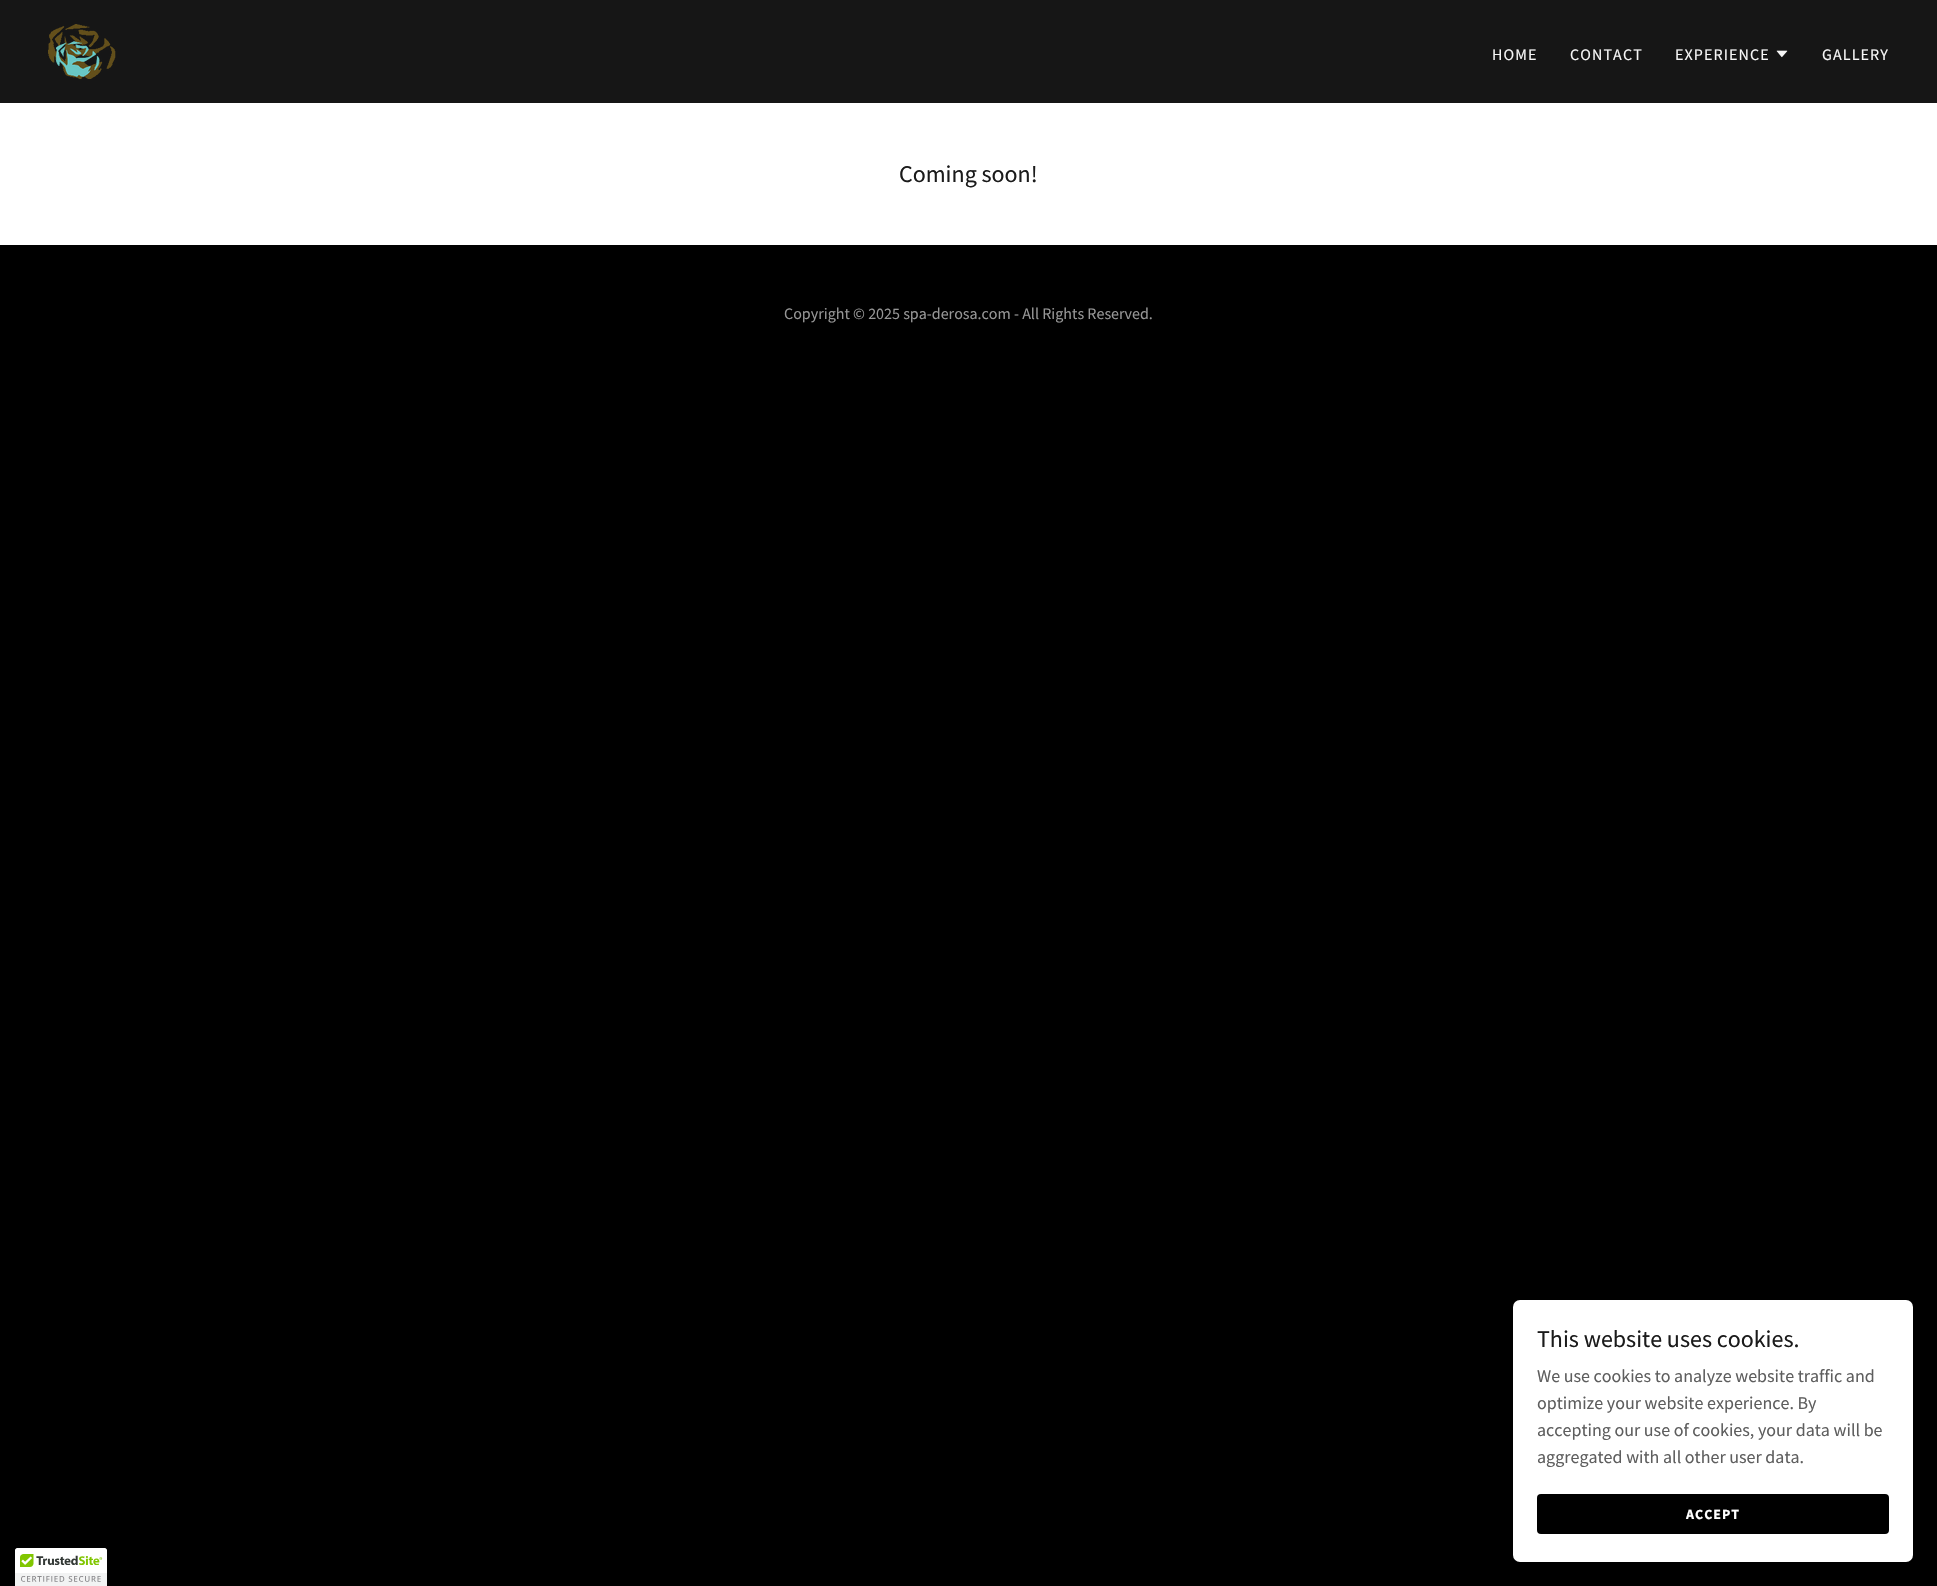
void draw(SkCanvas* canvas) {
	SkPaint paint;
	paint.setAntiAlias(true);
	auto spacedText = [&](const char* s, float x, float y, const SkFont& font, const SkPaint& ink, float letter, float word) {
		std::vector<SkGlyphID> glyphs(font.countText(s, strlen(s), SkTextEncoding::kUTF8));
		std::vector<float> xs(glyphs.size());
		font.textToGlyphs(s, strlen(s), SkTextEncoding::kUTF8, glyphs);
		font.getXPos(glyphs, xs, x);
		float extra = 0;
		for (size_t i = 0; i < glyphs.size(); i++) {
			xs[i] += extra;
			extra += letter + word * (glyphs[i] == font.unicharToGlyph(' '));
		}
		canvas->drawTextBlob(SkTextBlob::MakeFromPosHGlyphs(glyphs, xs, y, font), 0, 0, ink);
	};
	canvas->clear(0xff000000);
	paint.setColor(0xff161616);
	canvas->drawRect(SkRect::MakeXYWH(0, 0, 1937, 103), paint);
	canvas->drawImageRect(SkImages::DeferredFromEncodedData(SkData::MakeFromFileName("img1.png")), SkRect::MakeXYWH(48, 24, 68, 55), SkSamplingOptions());
	SkFont f1(fontMgr->matchFamilyStyle("Source Sans Pro", SkFontStyle::Normal()), 16);
	f1.setSubpixel(true);
	paint.setColor(0xfff7f7f7);
	spacedText("HOME", 1492, 60, f1, paint, 1.1, 0);
	spacedText("CONTACT", 1570, 60, f1, paint, 1.1, 0);
	spacedText("EXPERIENCE", 1675, 60, f1, paint, 1.1, 0);
	canvas->drawImageRect(SkImages::DeferredFromEncodedData(SkData::MakeFromFileName("img2.png")), SkRect::MakeXYWH(1776, 50, 12, 8), SkSamplingOptions());
	spacedText("GALLERY", 1822, 60, f1, paint, 1.1, 0);
	paint.setColor(0xffffffff);
	canvas->drawRect(SkRect::MakeXYWH(0, 103, 1937, 142), paint);
	SkFont f2(fontMgr->matchFamilyStyle("Source Sans Pro", SkFontStyle::Normal()), 24);
	f2.setSubpixel(true);
	paint.setColor(0xff1b1b1b);
	canvas->drawString("Coming soon!", 899, 182, f2, paint);
	paint.setColor(0xff969696);
	canvas->drawString("Copyright © 2025 spa-derosa.com - All Rights Reserved.", 784, 319, f1, paint);
	paint.setColor(0xffffffff);
	canvas->drawRoundRect(SkRect::MakeXYWH(1513, 1300, 400, 262), 7, 7, paint);
	paint.setColor(0xff1b1b1b);
	canvas->drawString("This website uses cookies.", 1537, 1347, f2, paint);
	SkFont f3(fontMgr->matchFamilyStyle("Source Sans Pro", SkFontStyle::Normal()), 18);
	f3.setSubpixel(true);
	paint.setColor(0xff5e5e5e);
	canvas->drawString("We use cookies to analyze website traffic and", 1537, 1382, f3, paint);
	canvas->drawString("optimize your website experience. By", 1537, 1409, f3, paint);
	canvas->drawString("accepting our use of cookies, your data will be", 1537, 1436, f3, paint);
	canvas->drawString("aggregated with all other user data.", 1537, 1463, f3, paint);
	paint.setColor(0xff000000);
	canvas->drawRoundRect(SkRect::MakeXYWH(1537, 1494, 352, 40), 4, 4, paint);
	SkFont f4(fontMgr->matchFamilyStyle("Source Sans Pro", SkFontStyle::Bold()), 14);
	f4.setSubpixel(true);
	paint.setColor(0xffffffff);
	spacedText("ACCEPT", 1686, 1519, f4, paint, 1, 0);
	canvas->drawImageRect(SkImages::DeferredFromEncodedData(SkData::MakeFromFileName("img3.png")), SkRect::MakeXYWH(15, 1548, 92, 38), SkSamplingOptions());
}
